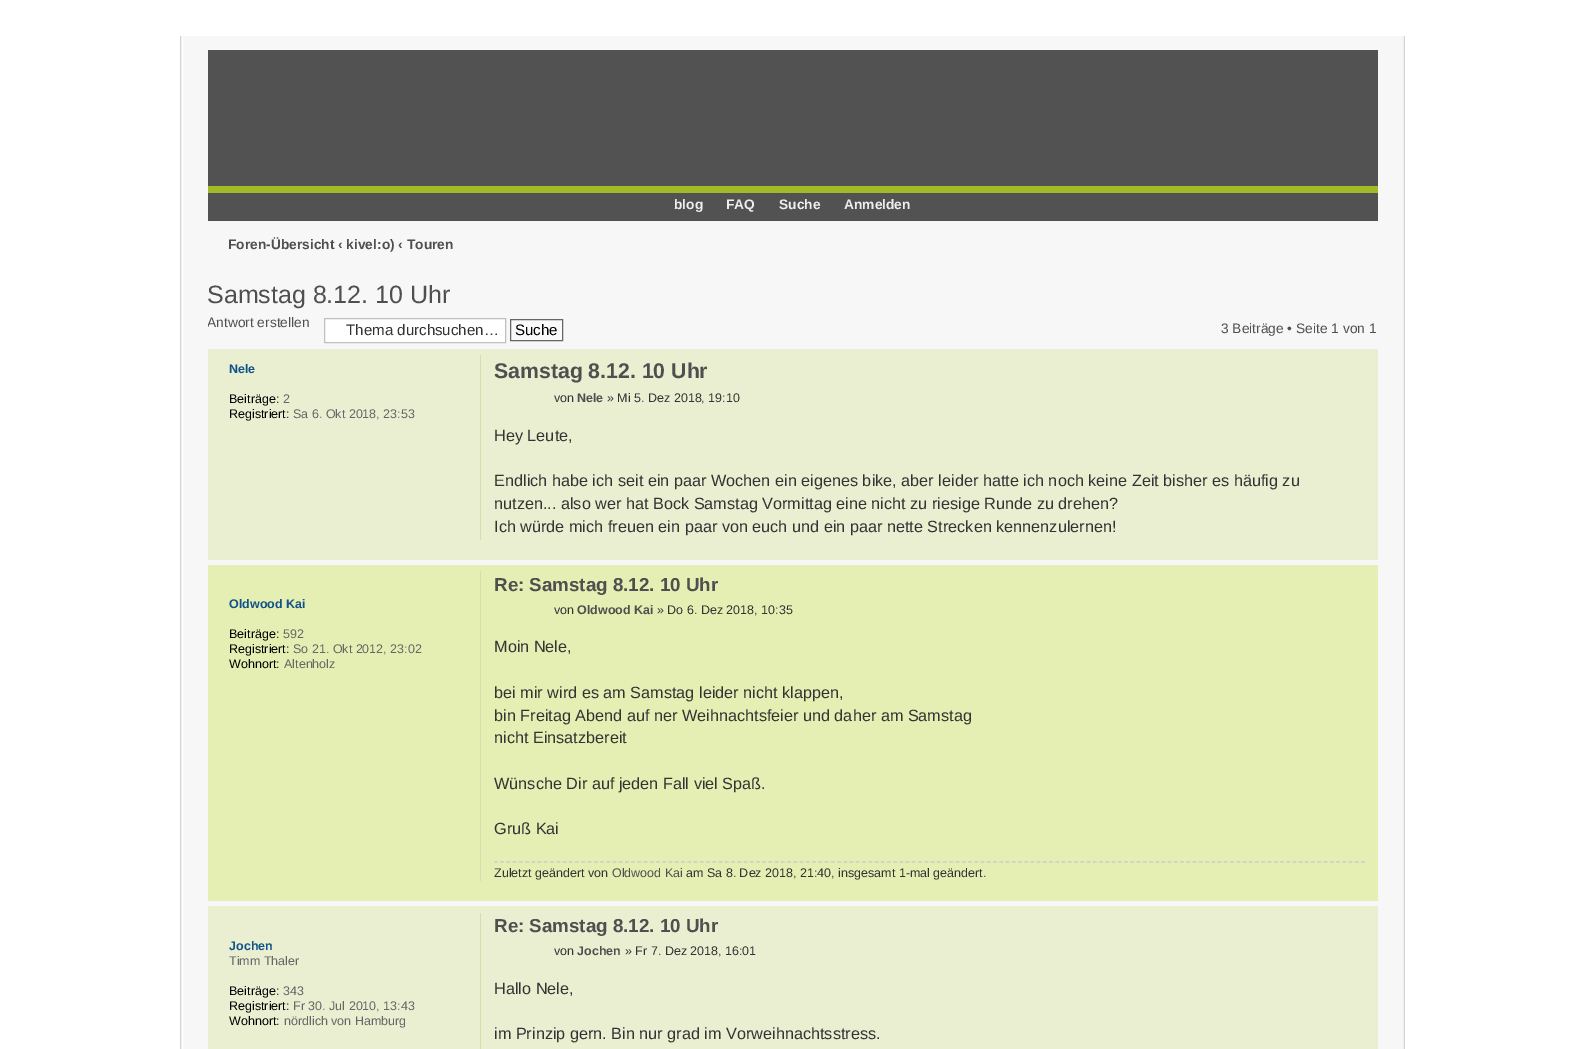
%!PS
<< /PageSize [1583 1049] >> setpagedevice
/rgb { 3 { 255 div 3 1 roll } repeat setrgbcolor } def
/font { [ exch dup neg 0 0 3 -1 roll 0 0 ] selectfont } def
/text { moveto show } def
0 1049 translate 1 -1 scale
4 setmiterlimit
255 255 255 rgb
0 0 1583 1049 rectfill
212 212 212 rgb
1404 36 1 1013 rectfill
180 36 1 1013 rectfill
247 247 247 rgb
183 36 1220 1013 rectfill
239 239 239 rgb
1403 36 1 1013 rectfill
181 36 1 1013 rectfill
82 82 82 rgb
208 50 1170 136 rectfill
162 186 37 rgb
208 186 1170 7 rectfill
82 82 82 rgb
208 193 1170 28 rectfill
255 255 255 rgb
324.5 318.5 moveto 181 0 rlineto 0 24 rlineto -181 0 rlineto closepath gsave fill grestore
191 191 191 rgb
stroke
250 250 250 rgb
510.5 319.5 moveto 52 0 rlineto 0 21 rlineto -52 0 rlineto closepath gsave fill grestore
102 102 102 rgb
stroke
234 239 209 rgb
208 349 1170 211 rectfill
213 223 167 rgb
480 355 1 185 rectfill
229 239 179 rgb
208 565 1170 336 rectfill
213 223 167 rgb
480 571 1 310 rectfill
204 204 204 rgb
1.2 setlinewidth
[3.75 2.49] 0 setdash
494 862 moveto 871 0 rlineto stroke
234 239 209 rgb
208 906 1170 143 rectfill
213 223 167 rgb
480 913 1 136 rectfill
/LiberationSans-Bold 13.75 font
238 238 238 rgb
(blog) 674 209 text
(FAQ) 726 209 text
(Suche) 779 209 text
(Anmelden) 844 209 text
79 79 79 rgb
(Foren-Übersicht ‹ kivel:o\) ‹ Touren) 228 249 text
/LiberationSans-Regular 25 font
(Samstag 8.12. 10 Uhr) 207 303 text
gsave
208 314 103 31 rectclip
/LiberationSans-Regular 13.75 font
(Antwort erstellen) 207 327 text
grestore
/LiberationSans-Regular 15.1 font
51 51 51 rgb
(Thema durchsuchen…) 346 335 text
0 0 0 rgb
(Suche) 515 335 text
/LiberationSans-Regular 13.75 font
79 79 79 rgb
(3 Beiträge • Seite 1 von 1) 1221 333 text
/LiberationSans-Bold 12.5 font
16 82 137 rgb
(Nele) 229 373 text
/LiberationSans-Regular 12.5 font
0 0 0 rgb
(Beiträge:) 229 403 text
102 102 102 rgb
(2) 283 403 text
0 0 0 rgb
(Registriert:) 229 418 text
102 102 102 rgb
(Sa 6. Okt 2018, 23:53) 293 418 text
/LiberationSans-Bold 21.25 font
79 79 79 rgb
(Samstag 8.12. 10 Uhr) 494 378 text
/LiberationSans-Regular 12.5 font
51 51 51 rgb
(von) 554 402 text
/LiberationSans-Bold 12.5 font
79 79 79 rgb
(Nele) 577 402 text
/LiberationSans-Regular 12.5 font
51 51 51 rgb
(» Mi 5. Dez 2018, 19:10) 607 402 text
/LiberationSans-Regular 16.25 font
(Hey Leute,) 494 441 text
(Endlich habe ich seit ein paar Wochen ein eigenes bike, aber leider hatte ich noch keine Zeit bisher es häufig zu) 494 486 text
(nutzen... also wer hat Bock Samstag Vormittag eine nicht zu riesige Runde zu drehen?) 494 509 text
(Ich würde mich freuen ein paar von euch und ein paar nette Strecken kennenzulernen!) 494 532 text
/LiberationSans-Bold 12.5 font
16 82 137 rgb
(Oldwood Kai) 229 608 text
/LiberationSans-Regular 12.5 font
0 0 0 rgb
(Beiträge:) 229 638 text
102 102 102 rgb
(592) 283 638 text
0 0 0 rgb
(Registriert:) 229 653 text
102 102 102 rgb
(So 21. Okt 2012, 23:02) 293 653 text
0 0 0 rgb
(Wohnort:) 229 668 text
102 102 102 rgb
(Altenholz) 284 668 text
/LiberationSans-Bold 18.75 font
79 79 79 rgb
(Re: Samstag 8.12. 10 Uhr) 494 591 text
/LiberationSans-Regular 12.5 font
51 51 51 rgb
(von) 554 614 text
/LiberationSans-Bold 12.5 font
79 79 79 rgb
(Oldwood Kai) 577 614 text
/LiberationSans-Regular 12.5 font
51 51 51 rgb
(» Do 6. Dez 2018, 10:35) 657 614 text
/LiberationSans-Regular 16.25 font
(Moin Nele,) 494 652 text
(bei mir wird es am Samstag leider nicht klappen,) 494 698 text
(bin Freitag Abend auf ner Weihnachtsfeier und daher am Samstag) 494 721 text
(nicht Einsatzbereit) 494 743 text
(Wünsche Dir auf jeden Fall viel Spaß.) 494 789 text
(Gruß Kai) 494 834 text
/LiberationSans-Regular 12.5 font
(Zuletzt geändert von) 494 877 text
79 79 79 rgb
(Oldwood Kai) 612 877 text
51 51 51 rgb
(am Sa 8. Dez 2018, 21:40, insgesamt 1-mal geändert.) 686 877 text
/LiberationSans-Bold 12.5 font
16 82 137 rgb
(Jochen) 229 950 text
/LiberationSans-Regular 12.5 font
102 102 102 rgb
(Timm Thaler) 229 965 text
0 0 0 rgb
(Beiträge:) 229 995 text
102 102 102 rgb
(343) 283 995 text
0 0 0 rgb
(Registriert:) 229 1010 text
102 102 102 rgb
(Fr 30. Jul 2010, 13:43) 293 1010 text
0 0 0 rgb
(Wohnort:) 229 1025 text
102 102 102 rgb
(nördlich von Hamburg) 284 1025 text
/LiberationSans-Bold 18.75 font
79 79 79 rgb
(Re: Samstag 8.12. 10 Uhr) 494 932 text
/LiberationSans-Regular 12.5 font
51 51 51 rgb
(von) 554 955 text
/LiberationSans-Bold 12.5 font
79 79 79 rgb
(Jochen) 577 955 text
/LiberationSans-Regular 12.5 font
51 51 51 rgb
(» Fr 7. Dez 2018, 16:01) 625 955 text
/LiberationSans-Regular 16.25 font
(Hallo Nele,) 494 994 text
(im Prinzip gern. Bin nur grad im Vorweihnachtsstress.) 494 1039 text
showpage
